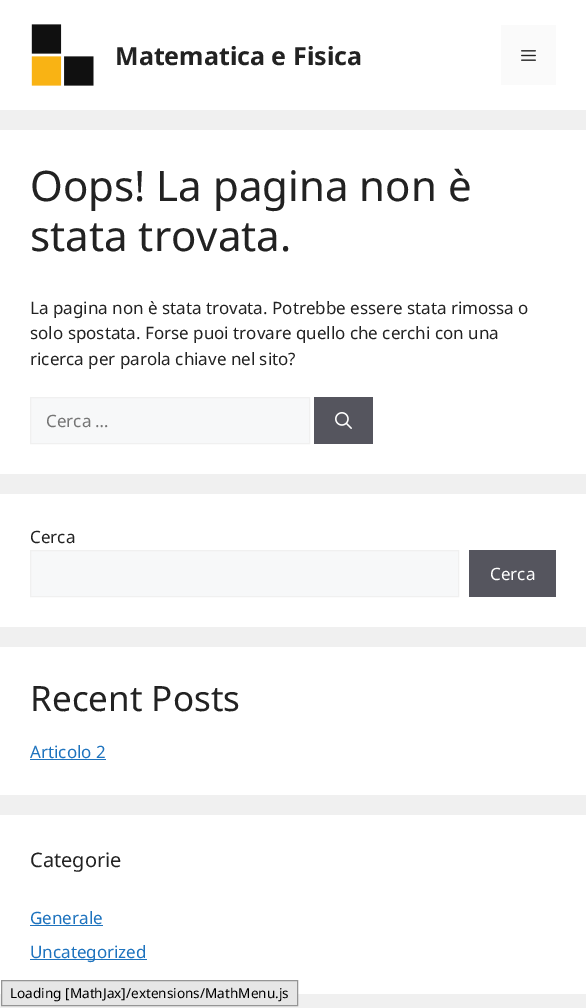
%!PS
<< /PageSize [586 1008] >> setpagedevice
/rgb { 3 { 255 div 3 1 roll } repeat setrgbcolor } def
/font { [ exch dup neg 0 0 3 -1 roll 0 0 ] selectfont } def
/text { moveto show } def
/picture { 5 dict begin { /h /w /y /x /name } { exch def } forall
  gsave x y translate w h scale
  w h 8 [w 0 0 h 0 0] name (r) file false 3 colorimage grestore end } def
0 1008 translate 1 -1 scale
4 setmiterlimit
240 240 240 rgb
0 0 586 1008 rectfill
255 255 255 rgb
0 0 586 110 rectfill
(img_01.rgb) 31 24 63 62 picture
250 250 250 rgb
501 25 55 60 rectfill
(img_02.rgb) 521 50 15 11 picture
255 255 255 rgb
0 130 586 344 rectfill
247 248 249 rgb
30.5 397.5 moveto 279 0 rlineto 0 46 rlineto -279 0 rlineto closepath gsave fill grestore
240 240 240 rgb
stroke
85 85 94 rgb
314 397 59 47 rectfill
(img_03.rgb) 335 412 17 17 picture
255 255 255 rgb
0 494 586 133 rectfill
247 248 249 rgb
30.5 550.5 moveto 428 0 rlineto 0 46 rlineto -428 0 rlineto closepath gsave fill grestore
240 240 240 rgb
stroke
85 85 94 rgb
469 550 87 47 rectfill
255 255 255 rgb
0 647 586 148 rectfill
30 115 190 rgb
30 759 76 1 rectfill
255 255 255 rgb
0 815 586 179 rectfill
30 115 190 rgb
30 925 73 1 rectfill
30 959 117 1 rectfill
230 230 230 rgb
1.5 980.5 moveto 296 0 rlineto 0 25 rlineto -296 0 rlineto closepath gsave fill grestore
149 149 149 rgb
stroke
/NotoSans-Bold 25 font
34 34 34 rgb
(Matematica e Fisica) 115 65 text
/NotoSans-Regular 42 font
(Oops! La pagina non è) 30 201 text
(stata trovata.) 30 251 text
/NotoSans-Regular 17 font
(La pagina non è stata trovata. Potrebbe essere stata rimossa o) 30 314 text
(solo spostata. Forse puoi trovare quello che cerchi con una) 30 339 text
(ricerca per parola chiave nel sito?) 30 365 text
117 117 117 rgb
(Cerca …) 46 427 text
34 34 34 rgb
(Cerca) 30 543 text
255 255 255 rgb
(Cerca) 490 580 text
/NotoSans-Regular 35 font
34 34 34 rgb
(Recent Posts) 30 711 text
/NotoSans-Regular 17 font
30 115 190 rgb
(Articolo 2) 30 758 text
/NotoSans-Regular 20 font
34 34 34 rgb
(Categorie) 30 867 text
/NotoSans-Regular 17 font
30 115 190 rgb
(Generale) 30 924 text
(Uncategorized) 30 958 text
/NotoSans-Regular 13.6 font
0 0 0 rgb
(Loading [MathJax]/extensions/MathMenu.js) 10 998 text
showpage
